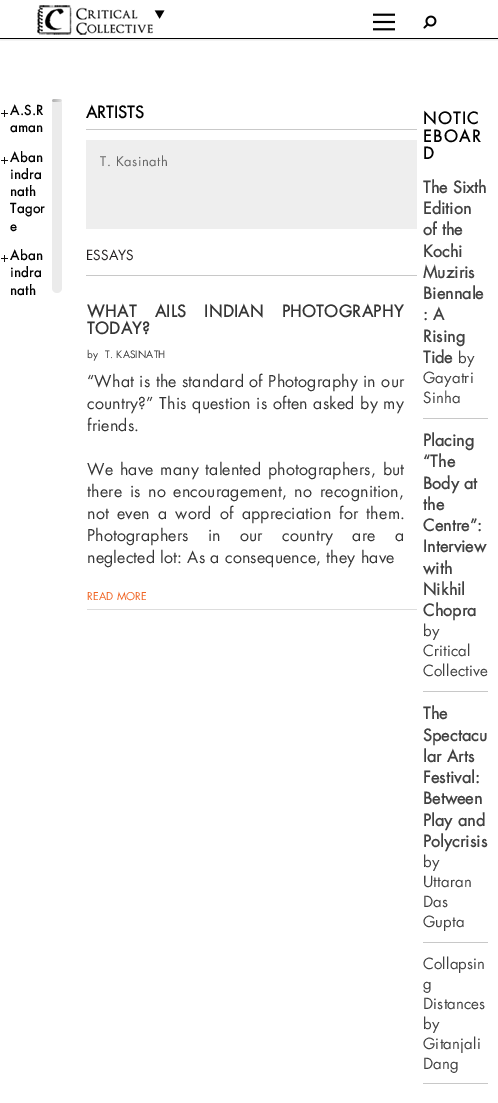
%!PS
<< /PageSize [498 1103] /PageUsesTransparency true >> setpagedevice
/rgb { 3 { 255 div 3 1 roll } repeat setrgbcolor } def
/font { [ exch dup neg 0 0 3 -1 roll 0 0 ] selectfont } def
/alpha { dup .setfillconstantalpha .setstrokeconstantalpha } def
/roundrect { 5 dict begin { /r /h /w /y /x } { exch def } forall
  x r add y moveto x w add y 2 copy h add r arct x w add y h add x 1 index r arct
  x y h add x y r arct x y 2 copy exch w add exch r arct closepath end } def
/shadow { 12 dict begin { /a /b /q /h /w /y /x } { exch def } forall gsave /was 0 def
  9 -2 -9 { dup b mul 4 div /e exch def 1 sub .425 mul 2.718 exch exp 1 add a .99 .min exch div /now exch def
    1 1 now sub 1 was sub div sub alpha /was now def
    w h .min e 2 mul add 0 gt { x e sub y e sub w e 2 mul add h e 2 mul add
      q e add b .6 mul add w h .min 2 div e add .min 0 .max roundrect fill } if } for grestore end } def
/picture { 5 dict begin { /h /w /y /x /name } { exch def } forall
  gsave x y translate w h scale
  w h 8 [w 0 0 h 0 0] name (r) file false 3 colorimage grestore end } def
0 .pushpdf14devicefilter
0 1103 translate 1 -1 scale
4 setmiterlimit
255 255 255 rgb
0 0 498 1103 rectfill
235 235 235 rgb
52 99 10 194 5 roundrect fill
(img_01.rgb) 52 99 10 3 picture
gsave
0 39 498 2 rectclip
0 0 0 rgb
0 1 498 39 0 1.5 0.1 shadow
grestore
0 0 0 rgb
0 38 498 1 rectfill
(img_02.rgb) 37 5 128 30 picture
(img_03.rgb) 373 13 22 18 picture
(img_04.rgb) 423 15 14 14 picture
(img_05.rgb) 1 110 7 7 picture
(img_05.rgb) 1 157 7 7 picture
(img_05.rgb) 1 255 7 7 picture
201 201 201 rgb
86 129 331 1 rectfill
238 238 238 rgb
86 140 331 89 rectfill
200 200 200 rgb
86 275 331 1 rectfill
221 221 221 rgb
86 609 331 1 rectfill
255 255 255 rgb
86 609 1 1 rectfill
200 200 200 rgb
423 418 65 1 rectfill
423 691 65 1 rectfill
423 942 65 1 rectfill
423 1083 65 1 rectfill
/Futura-Bold 13 font
0 0 0 rgb
10 115 moveto 0.5 0 (A.S.R) ashow
10 132 moveto 0.5 0 (aman) ashow
10 162 moveto 0.5 0 (Aban) ashow
10 179 moveto 0.5 0 (indra) ashow
10 196 moveto 0.5 0 (nath) ashow
10 213 moveto 0.5 0 (Tagor) ashow
10 231 moveto 0.5 0 (e) ashow
10 260 moveto 0.5 0 (Aban) ashow
10 277 moveto 0.5 0 (indra) ashow
10 295 moveto 0.5 0 (nath) ashow
/Futura-Bold 16 font
86 118 moveto 0.15 0 (ARTISTS) ashow
/Futura-Regular 13 font
102 102 102 rgb
100 166 moveto 0.5 0 (T. Kasinath) ashow
/Futura-Regular 13.5 font
35 31 32 rgb
86 260 moveto 0.15 0 (ESSAYS) ashow
/Futura-Bold 16 font
53 53 53 rgb
87 317 moveto 12.5 0 32 0.5 0 (WHAT AILS INDIAN PHOTOGRAPHY) awidthshow
87 334 moveto 0.5 0 (TODAY?) ashow
/Futura-Regular 10 font
87 358 moveto 0.15 0 (by) ashow
105 358 moveto 0.15 0 (T. KASINATH) ashow
/Futura-Regular 16 font
87 387 moveto 0.25 0 32 0.15 0 (“What is the standard of Photography in our) awidthshow
87 409 moveto 0.5 0 32 0.15 0 (country?” This question is often asked by my) awidthshow
87 431 moveto 0.15 0 (friends.) ashow
87 475 moveto 1.5 0 32 0.15 0 (We have many talented photographers, but) awidthshow
87 497 moveto 2.5 0 32 0.15 0 (there is no encouragement, no recognition,) awidthshow
87 519 moveto 3 0 32 0.15 0 (not even a word of appreciation for them.) awidthshow
87 541 moveto 14 0 32 0.15 0 (Photographers in our country are a) awidthshow
87 563 moveto 0.15 0 (neglected lot: As a consequence, they have) ashow
/Futura-Regular 10.5 font
240 100 35 rgb
87 600 moveto 0.15 0 (READ MORE) ashow
/Futura-Bold 16 font
0 0 0 rgb
423 124 moveto 1.5 0 (NOTIC) ashow
423 142 moveto 1.5 0 (EBOAR) ashow
423 159 moveto 1.5 0 (D) ashow
65 65 65 rgb
423 193 moveto 0.15 0 (The Sixth) ashow
423 214 moveto 0.15 0 (Edition) ashow
423 235 moveto 0.15 0 (of the) ashow
423 257 moveto 0.15 0 (Kochi) ashow
423 278 moveto 0.15 0 (Muziris) ashow
423 299 moveto 0.15 0 (Biennale) ashow
423 320 moveto 0.15 0 (: A) ashow
423 342 moveto 0.15 0 (Rising) ashow
423 363 moveto 0.15 0 (Tide) ashow
/Futura-Regular 15 font
458 363 moveto 0.15 0 (by) ashow
423 383 moveto 0.15 0 (Gayatri) ashow
423 403 moveto 0.15 0 (Sinha) ashow
/Futura-Bold 16 font
423 446 moveto 0.15 0 (Placing) ashow
423 467 moveto 0.15 0 (“The) ashow
423 489 moveto 0.15 0 (Body at) ashow
423 510 moveto 0.15 0 (the) ashow
423 531 moveto 0.15 0 (Centre”:) ashow
423 552 moveto 0.15 0 (Interview) ashow
423 574 moveto 0.15 0 (with) ashow
423 595 moveto 0.15 0 (Nikhil) ashow
423 616 moveto 0.15 0 (Chopra) ashow
/Futura-Regular 15 font
423 636 moveto 0.15 0 (by) ashow
423 656 moveto 0.15 0 (Critical) ashow
423 676 moveto 0.15 0 (Collective) ashow
/Futura-Bold 16 font
423 719 moveto 0.15 0 (The) ashow
423 741 moveto 0.15 0 (Spectacu) ashow
423 762 moveto 0.15 0 (lar Arts) ashow
423 783 moveto 0.15 0 (Festival:) ashow
423 804 moveto 0.15 0 (Between) ashow
423 826 moveto 0.15 0 (Play and) ashow
423 847 moveto 0.15 0 (Polycrisis) ashow
/Futura-Regular 15 font
423 867 moveto 0.15 0 (by) ashow
423 887 moveto 0.15 0 (Uttaran) ashow
423 907 moveto 0.15 0 (Das) ashow
423 927 moveto 0.15 0 (Gupta) ashow
423 969 moveto 0.15 0 (Collapsin) ashow
423 989 moveto 0.15 0 (g) ashow
423 1009 moveto 0.15 0 (Distances) ashow
423 1029 moveto 0.15 0 (by) ashow
423 1049 moveto 0.15 0 (Gitanjali) ashow
423 1069 moveto 0.15 0 (Dang) ashow
.poppdf14devicefilter showpage
